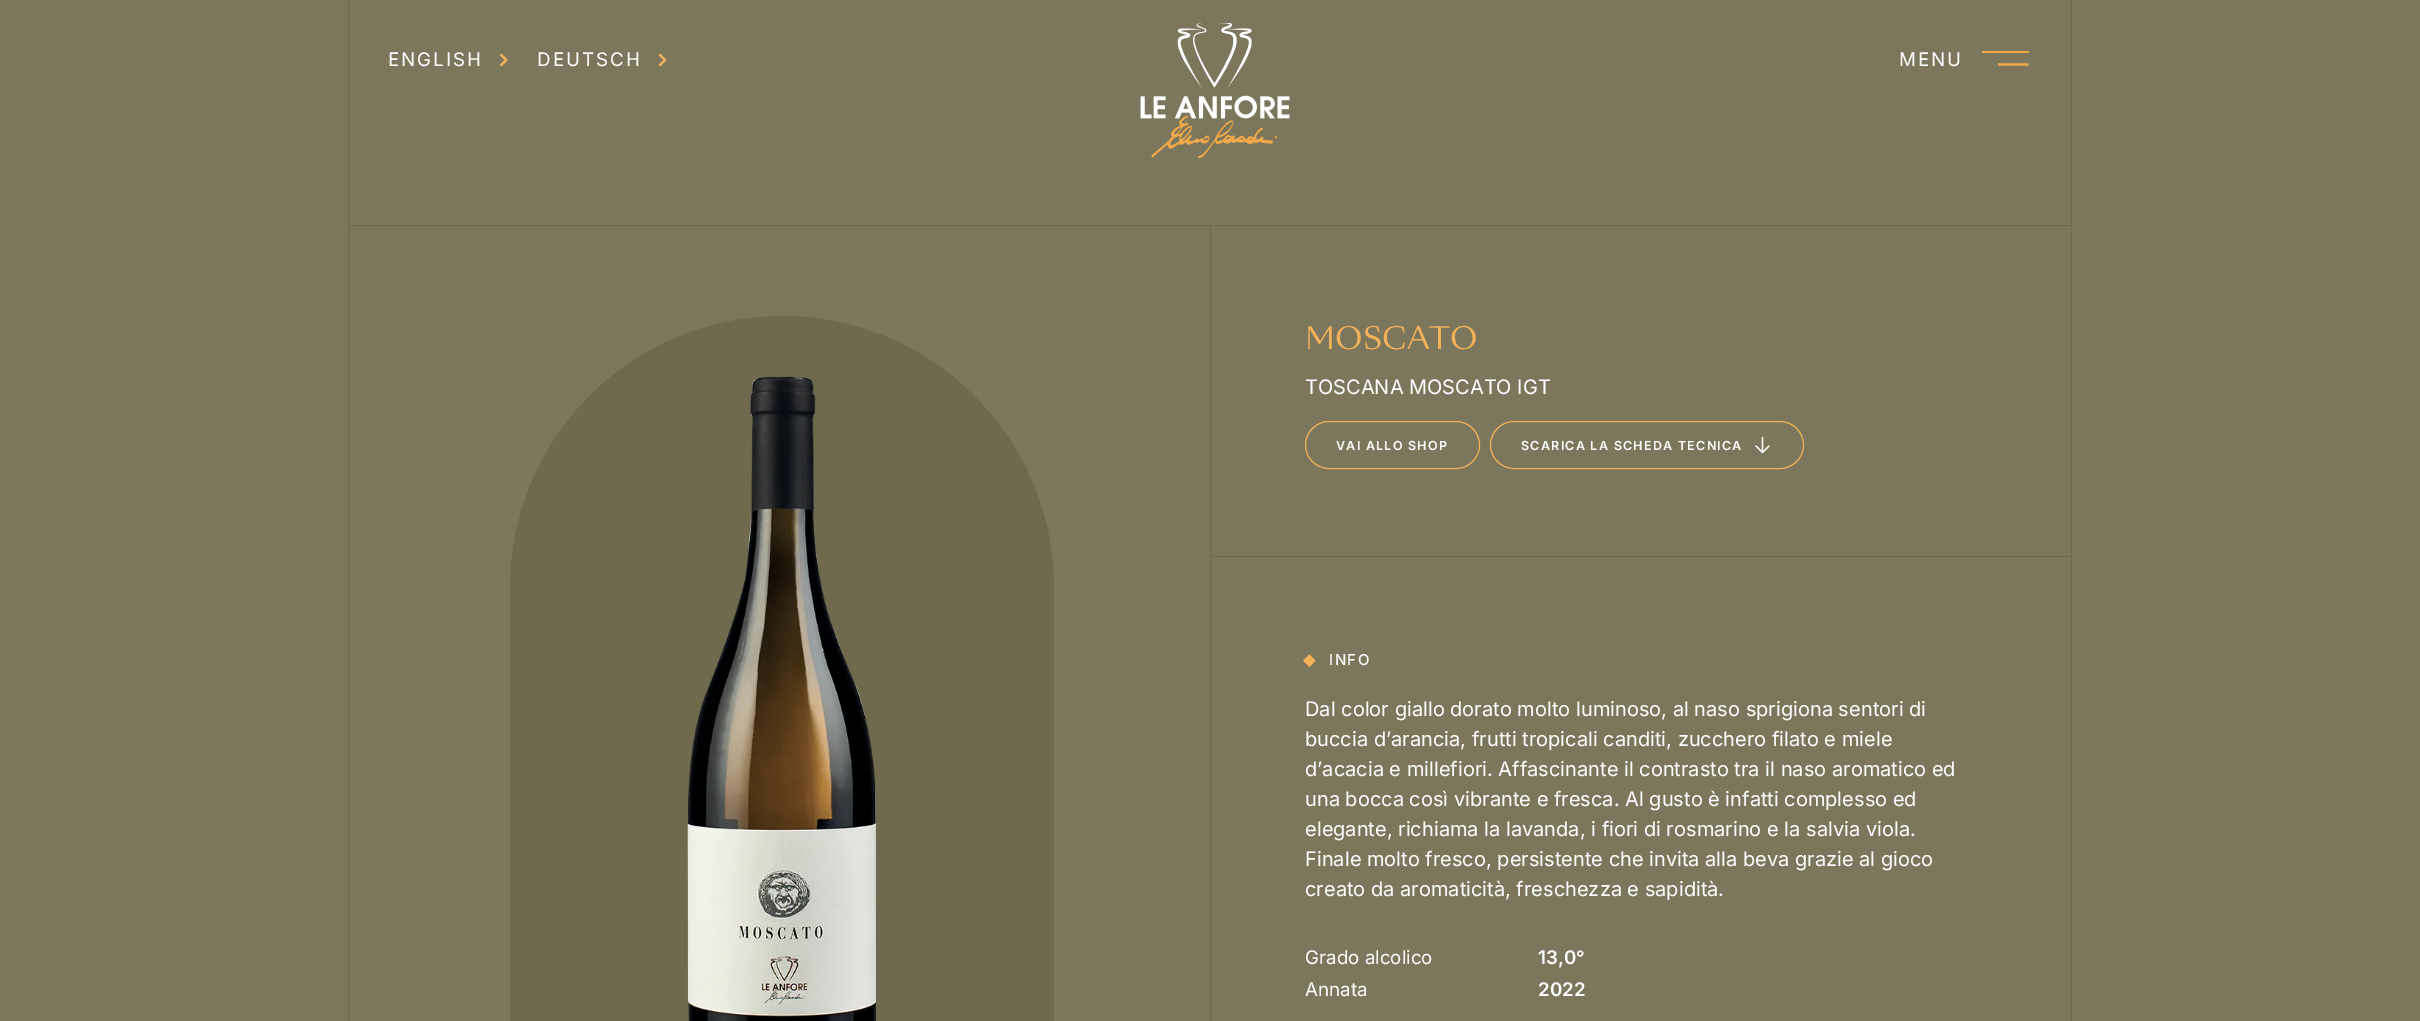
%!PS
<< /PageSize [2420 1021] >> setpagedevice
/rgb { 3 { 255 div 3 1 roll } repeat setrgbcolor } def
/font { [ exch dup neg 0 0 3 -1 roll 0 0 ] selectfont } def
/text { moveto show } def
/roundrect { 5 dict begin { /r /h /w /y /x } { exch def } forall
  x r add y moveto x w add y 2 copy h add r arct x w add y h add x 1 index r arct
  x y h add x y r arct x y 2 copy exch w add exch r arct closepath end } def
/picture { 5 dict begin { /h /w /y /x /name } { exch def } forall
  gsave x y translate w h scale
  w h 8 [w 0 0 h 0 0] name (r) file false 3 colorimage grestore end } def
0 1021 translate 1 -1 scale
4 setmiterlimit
124 119 92 rgb
0 0 2420 1021 rectfill
(img_01.rgb) 500 53 8 14 picture
(img_02.rgb) 658 53 9 14 picture
(img_03.rgb) 1140 23 150 135 picture
242 170 73 rgb
1982 51 47 2 rectfill
2.3 setlinewidth
1998 64.5 moveto 30.5 0 rlineto stroke
111 105 78 rgb
2071 0 1 1021 rectfill
348 0 1 1021 rectfill
349 225 1722 1 rectfill
782 316 moveto 150 0 272 122 272 272 rcurveto 0 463 rlineto -544 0 rlineto 0 -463 rlineto 0 -150 122 -272 272 -272 rcurveto closepath fill
(img_04.rgb) 687 376 189 645 picture
1210 226 1 795 rectfill
243 178 90 rgb
1 setlinewidth
1305.5 421.5 174 47 23.5 roundrect stroke
1490.5 421.5 313 47 23.5 roundrect stroke
255 255 255 rgb
1.2 setlinewidth
1 setlinecap
1 setlinejoin
1769 446 moveto -6.5 6.5 rlineto 1762.5 452.5 moveto -6.5 -6.5 rlineto 1762.5 452.5 moveto 0 -15 rlineto stroke
111 105 78 rgb
1210 556 861 1 rectfill
243 178 90 rgb
1309.5 654.5 moveto 6 6 rlineto -6 6.5 rlineto -6.5 -6.5 rlineto closepath fill
/Inter-Regular 18.75 font
255 255 255 rgb
388 66 moveto 2 0 (ENGLISH) ashow
537 66 moveto 2 0 (DEUTSCH) ashow
1899 66 moveto 2 0 (MENU) ashow
/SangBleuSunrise-Regular 30 font
243 178 90 rgb
(MOSCATO) 1305 349 text
/Inter-Regular 20 font
255 255 255 rgb
(TOSCANA MOSCATO IGT) 1305 394 text
/Inter-SemiBold 12.5 font
1336 450 moveto 1.25 0 (VAI ALLO SHOP) ashow
1521 450 moveto 1.25 0 (SCARICA LA SCHEDA TECNICA) ashow
/Inter-Medium 15 font
1329 665 moveto 1.5 0 (INFO) ashow
/Inter-Regular 20 font
(Dal color giallo dorato molto luminoso, al naso sprigiona sentori di) 1305 716 text
(buccia d’arancia, frutti tropicali canditi, zucchero filato e miele) 1305 746 text
(d’acacia e millefiori. Affascinante il contrasto tra il naso aromatico ed) 1305 776 text
(una bocca così vibrante e fresca. Al gusto è infatti complesso ed) 1305 806 text
(elegante, richiama la lavanda, i fiori di rosmarino e la salvia viola.) 1305 836 text
(Finale molto fresco, persistente che invita alla beva grazie al gioco) 1305 866 text
(creato da aromaticità, freschezza e sapidità.) 1305 896 text
/Inter-Regular 18.75 font
(Grado alcolico) 1305 964 text
/Inter-SemiBold 18.75 font
(13,0°) 1538 964 text
/Inter-Regular 18.75 font
(Annata) 1305 996 text
/Inter-SemiBold 18.75 font
(2022) 1538 996 text
showpage
